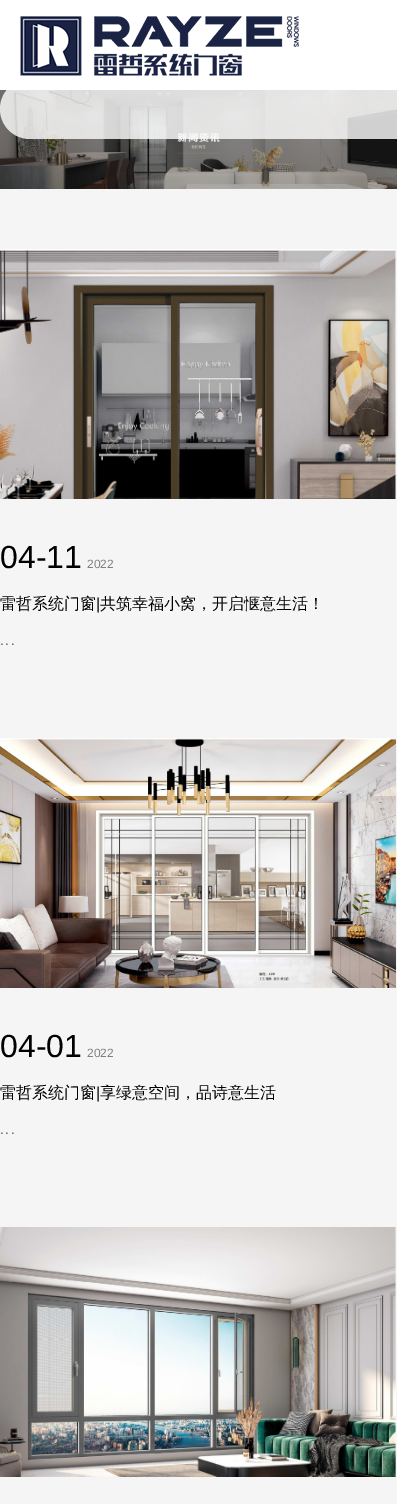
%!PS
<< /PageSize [397 1504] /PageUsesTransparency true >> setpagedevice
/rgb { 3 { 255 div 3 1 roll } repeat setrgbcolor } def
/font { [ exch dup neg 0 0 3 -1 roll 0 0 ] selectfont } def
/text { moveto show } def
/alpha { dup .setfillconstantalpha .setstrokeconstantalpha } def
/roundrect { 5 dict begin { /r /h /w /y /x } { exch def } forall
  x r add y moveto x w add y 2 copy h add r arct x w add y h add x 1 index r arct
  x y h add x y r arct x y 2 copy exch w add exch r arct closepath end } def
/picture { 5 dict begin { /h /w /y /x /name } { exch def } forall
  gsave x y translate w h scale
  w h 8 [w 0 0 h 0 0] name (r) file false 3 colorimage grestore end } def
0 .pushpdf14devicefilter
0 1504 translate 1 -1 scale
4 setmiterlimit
255 255 255 rgb
0 0 397 1504 rectfill
(img_01.rgb) 20 16 279 60 picture
245 245 245 rgb
0 189 397 1315 rectfill
(img_02.rgb) 0 90 397 99 picture
0.8 alpha
255 255 255 rgb
0 79 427 60 30 roundrect fill
1 alpha
(img_03.rgb) 0 249 396 250 picture
(img_04.rgb) 0 738 396 250 picture
(img_05.rgb) 0 1227 396 250 picture
/LiberationSans-Regular 32 font
0 0 0 rgb
(04-11) 0 568 text
/LiberationSans-Regular 12 font
128 128 128 rgb
(2022) 87 568 text
/WenQuanYiZenHei-Medium 16 font
0 0 0 rgb
(雷哲系统门窗) 0 609 text
/LiberationSans-Regular 16 font
(|) 96 609 text
/WenQuanYiZenHei-Medium 16 font
(共筑幸福小窝，开启惬意生活！) 100 609 text
/LiberationSans-Regular 14 font
76 76 76 rgb
0 645 moveto 1.5 0 (...) ashow
/LiberationSans-Regular 32 font
0 0 0 rgb
(04-01) 0 1057 text
/LiberationSans-Regular 12 font
128 128 128 rgb
(2022) 87 1057 text
/WenQuanYiZenHei-Medium 16 font
0 0 0 rgb
(雷哲系统门窗) 0 1098 text
/LiberationSans-Regular 16 font
(|) 96 1098 text
/WenQuanYiZenHei-Medium 16 font
(享绿意空间，品诗意生活) 100 1098 text
/LiberationSans-Regular 14 font
76 76 76 rgb
0 1134 moveto 1.5 0 (...) ashow
.poppdf14devicefilter showpage
